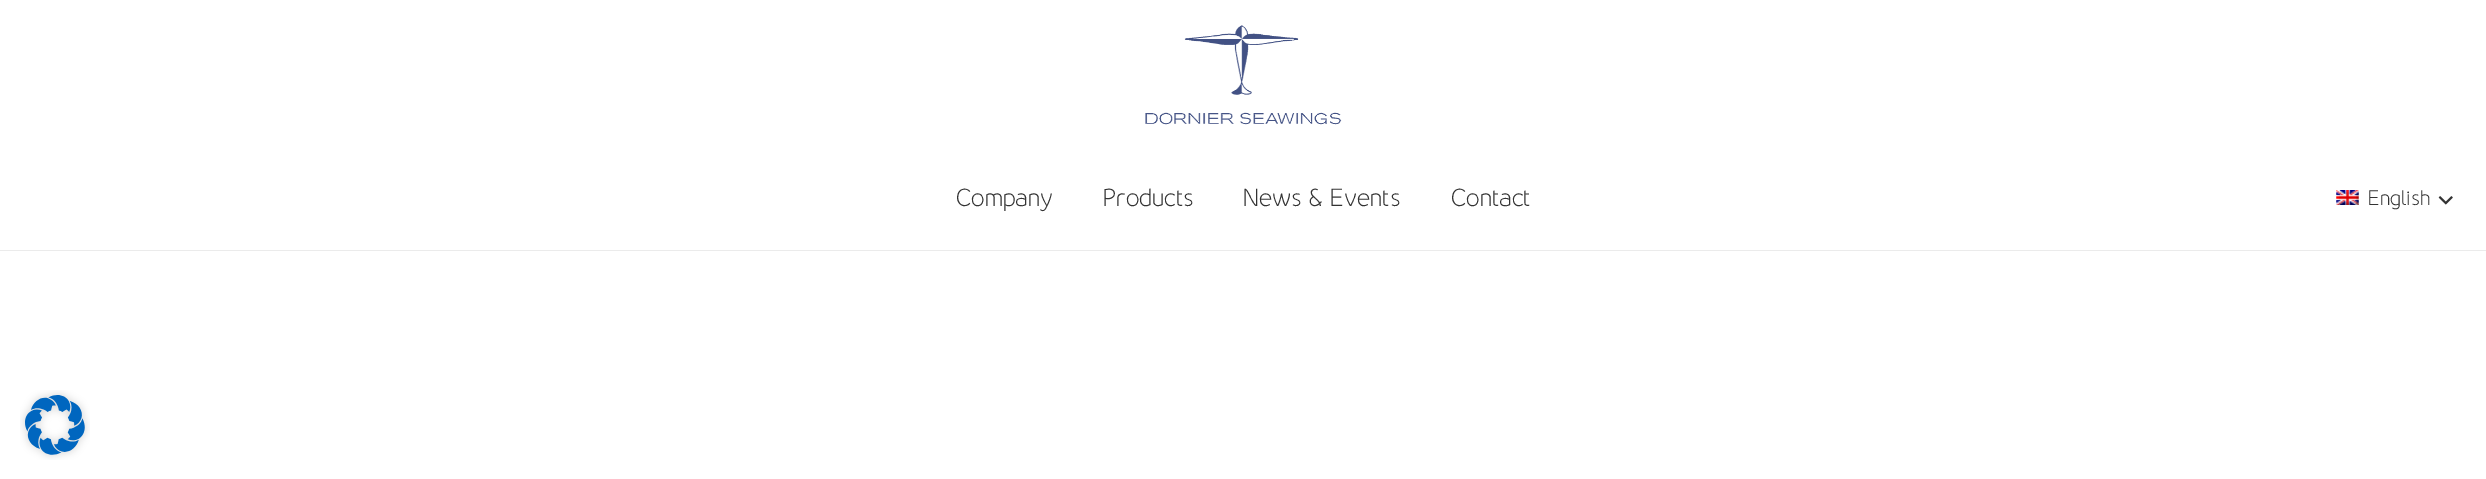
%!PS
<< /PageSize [2486 479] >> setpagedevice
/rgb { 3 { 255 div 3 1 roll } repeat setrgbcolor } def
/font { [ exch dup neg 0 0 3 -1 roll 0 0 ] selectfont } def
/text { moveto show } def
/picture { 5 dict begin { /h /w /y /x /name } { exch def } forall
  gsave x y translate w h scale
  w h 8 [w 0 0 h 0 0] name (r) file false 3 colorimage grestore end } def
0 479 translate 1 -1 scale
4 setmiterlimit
255 255 255 rgb
0 0 2486 479 rectfill
(img_01.rgb) 1145 25 197 100 picture
235 235 235 rgb
0 250 2486 1 rectfill
(img_02.rgb) 2336 190 23 15 picture
(img_03.rgb) 2438 196 15 9 picture
(img_04.rgb) 20 390 70 70 picture
/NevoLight-Regular 22.5 font
51 51 51 rgb
(Company) 956 206 text
(Products) 1103 206 text
(News & Events) 1243 206 text
(Contact) 1451 206 text
/NevoLight-Regular 19 font
(English) 2368 205 text
showpage
